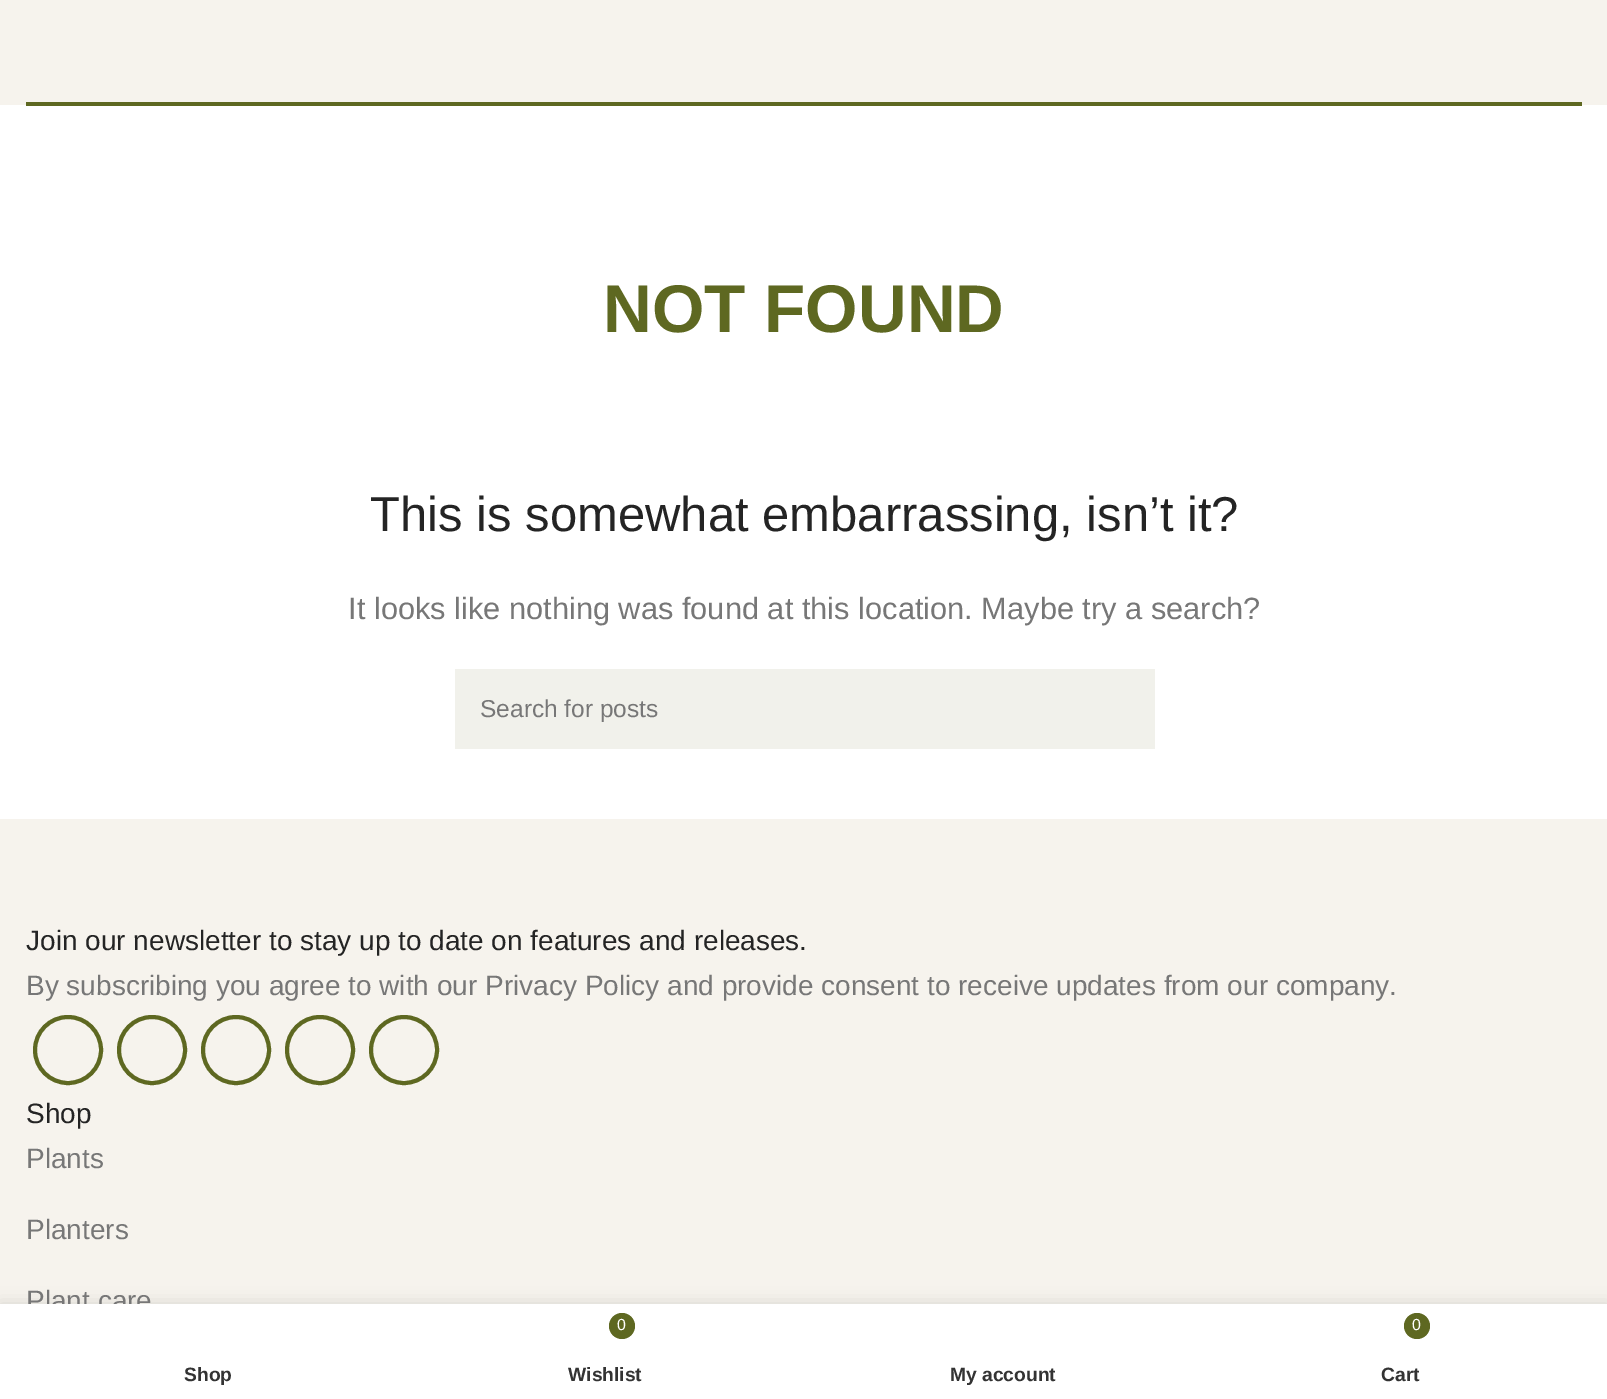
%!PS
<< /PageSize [1607 1399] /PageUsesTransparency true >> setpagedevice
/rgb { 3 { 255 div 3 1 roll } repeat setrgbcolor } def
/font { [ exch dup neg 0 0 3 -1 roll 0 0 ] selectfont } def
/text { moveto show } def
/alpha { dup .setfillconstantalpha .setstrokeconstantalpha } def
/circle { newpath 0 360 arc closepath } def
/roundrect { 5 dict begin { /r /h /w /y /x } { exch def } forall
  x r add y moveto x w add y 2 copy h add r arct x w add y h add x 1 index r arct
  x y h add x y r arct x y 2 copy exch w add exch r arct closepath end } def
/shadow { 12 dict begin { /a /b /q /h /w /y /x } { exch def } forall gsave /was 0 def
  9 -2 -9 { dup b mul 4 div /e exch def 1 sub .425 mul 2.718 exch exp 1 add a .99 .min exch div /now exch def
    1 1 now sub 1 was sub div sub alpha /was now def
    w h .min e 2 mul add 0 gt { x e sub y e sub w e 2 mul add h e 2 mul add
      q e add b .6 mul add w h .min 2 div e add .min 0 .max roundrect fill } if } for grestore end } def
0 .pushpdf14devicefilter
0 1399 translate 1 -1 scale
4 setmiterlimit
255 255 255 rgb
0 0 1607 1399 rectfill
246 243 237 rgb
0 0 1607 105 rectfill
94 104 33 rgb
26 102 1556 4 rectfill
241 241 235 rgb
455 669 700 80 rectfill
246 243 237 rgb
0 819 1607 485 rectfill
94 104 33 rgb
4 setlinewidth
68 1050 33 circle stroke
152 1050 33 circle stroke
236 1050 33 circle stroke
320 1050 33 circle stroke
404 1050 33 circle stroke
0 0 0 rgb
0 1304 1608 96 0 8 0.12 shadow
/LiberationSans-Bold 67.5 font
94 104 33 rgb
(NOT FOUND) 603 332 text
/LiberationSans-Regular 49 font
36 36 36 rgb
(This is somewhat embarrassing, isn’t it?) 370 531 text
/LiberationSans-Regular 30.8 font
119 119 119 rgb
(It looks like nothing was found at this location. Maybe try a search?) 348 619 text
/LiberationSans-Regular 24.5 font
(Search for posts) 480 717 text
/LiberationSans-Regular 28 font
36 36 36 rgb
(Join our newsletter to stay up to date on features and releases.) 26 950 text
119 119 119 rgb
(By subscribing you agree to with our Privacy Policy and provide consent to receive updates from our company.) 26 995 text
36 36 36 rgb
(Shop) 26 1123 text
119 119 119 rgb
(Plants) 26 1168 text
(Planters) 26 1239 text
(Plant care) 26 1310 text
255 255 255 rgb
0 1304 1607 95 rectfill
/LiberationSans-Bold 19.25 font
51 51 51 rgb
(Shop) 184 1381 text
94 104 33 rgb
622 1326 13 circle fill
/LiberationSans-Regular 16 font
255 255 255 rgb
(0) 617 1330 text
/LiberationSans-Bold 19.25 font
51 51 51 rgb
(Wishlist) 568 1381 text
(My account) 950 1381 text
94 104 33 rgb
1417 1326 13 circle fill
/LiberationSans-Regular 16 font
255 255 255 rgb
(0) 1412 1330 text
/LiberationSans-Bold 19.25 font
51 51 51 rgb
(Cart) 1381 1381 text
.poppdf14devicefilter showpage
